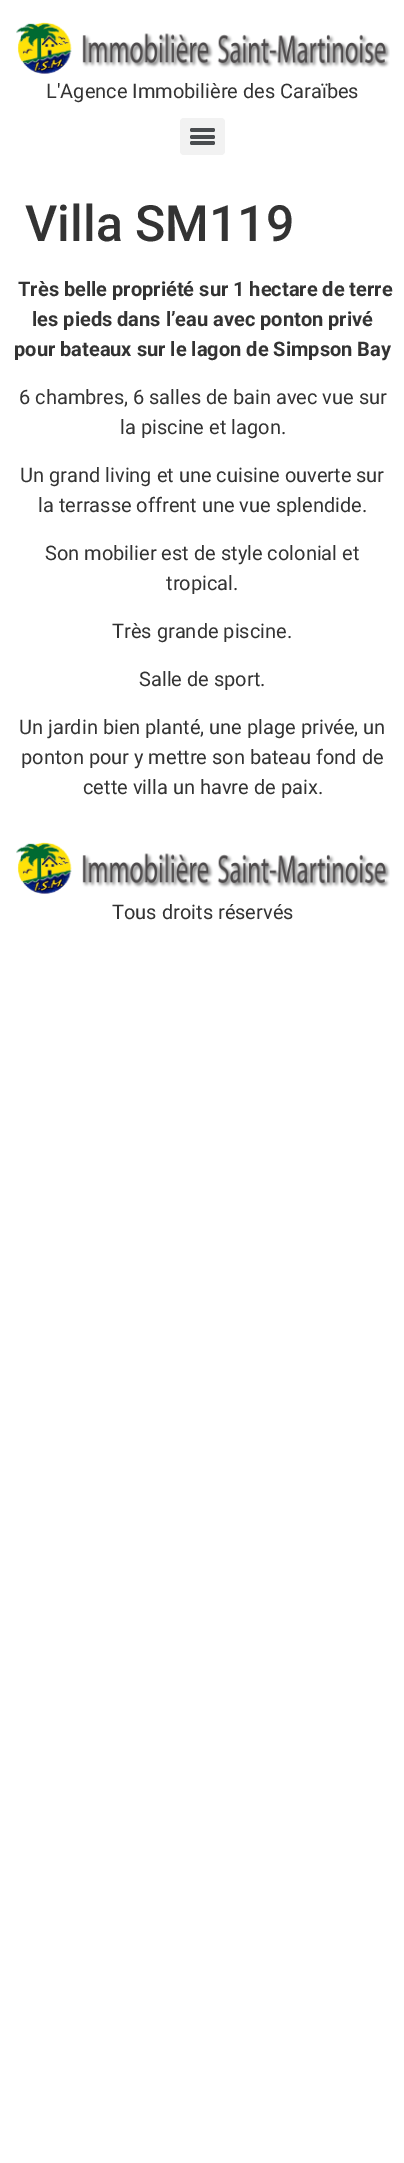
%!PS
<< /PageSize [404 2163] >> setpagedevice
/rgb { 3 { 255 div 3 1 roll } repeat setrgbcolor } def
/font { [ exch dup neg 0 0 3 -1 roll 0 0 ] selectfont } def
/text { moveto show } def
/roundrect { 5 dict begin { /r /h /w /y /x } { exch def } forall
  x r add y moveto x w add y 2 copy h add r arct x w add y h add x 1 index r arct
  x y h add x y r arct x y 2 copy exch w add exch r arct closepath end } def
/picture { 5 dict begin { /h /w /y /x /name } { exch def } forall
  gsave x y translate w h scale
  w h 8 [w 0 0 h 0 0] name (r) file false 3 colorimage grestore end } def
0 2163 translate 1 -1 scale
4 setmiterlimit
255 255 255 rgb
0 0 404 2163 rectfill
(img_01.rgb) 16 22 374 52 picture
242 242 242 rgb
180 118 45 37 4 roundrect fill
73 76 79 rgb
190 135 25 4 2 roundrect fill
190 128 25 4 2 roundrect fill
190 141 25 4 2 roundrect fill
(img_01.rgb) 16 842 374 52 picture
/Roboto-Regular 20 font
51 51 51 rgb
(L'Agence Immobilière des Caraïbes) 46 98 text
/Roboto-Medium 50 font
(Villa SM119) 25 241 text
/Roboto-Bold 20 font
(Très belle propriété sur 1 hectare de terre) 18 296 text
(les pieds dans l’eau avec ponton privé) 32 326 text
(pour bateaux sur le lagon de Simpson Bay) 14 356 text
/Roboto-Regular 20 font
(6 chambres, 6 salles de bain avec vue sur) 19 404 text
(la piscine et lagon.) 120 434 text
(Un grand living et une cuisine ouverte sur) 20 482 text
(la terrasse offrent une vue splendide.) 38 512 text
(Son mobilier est de style colonial et) 45 560 text
(tropical.) 166 590 text
(Très grande piscine.) 112 638 text
(Salle de sport.) 139 686 text
(Un jardin bien planté, une plage privée, un) 19 734 text
(ponton pour y mettre son bateau fond de) 21 764 text
(cette villa un havre de paix.) 83 794 text
(Tous droits réservés) 112 919 text
showpage
